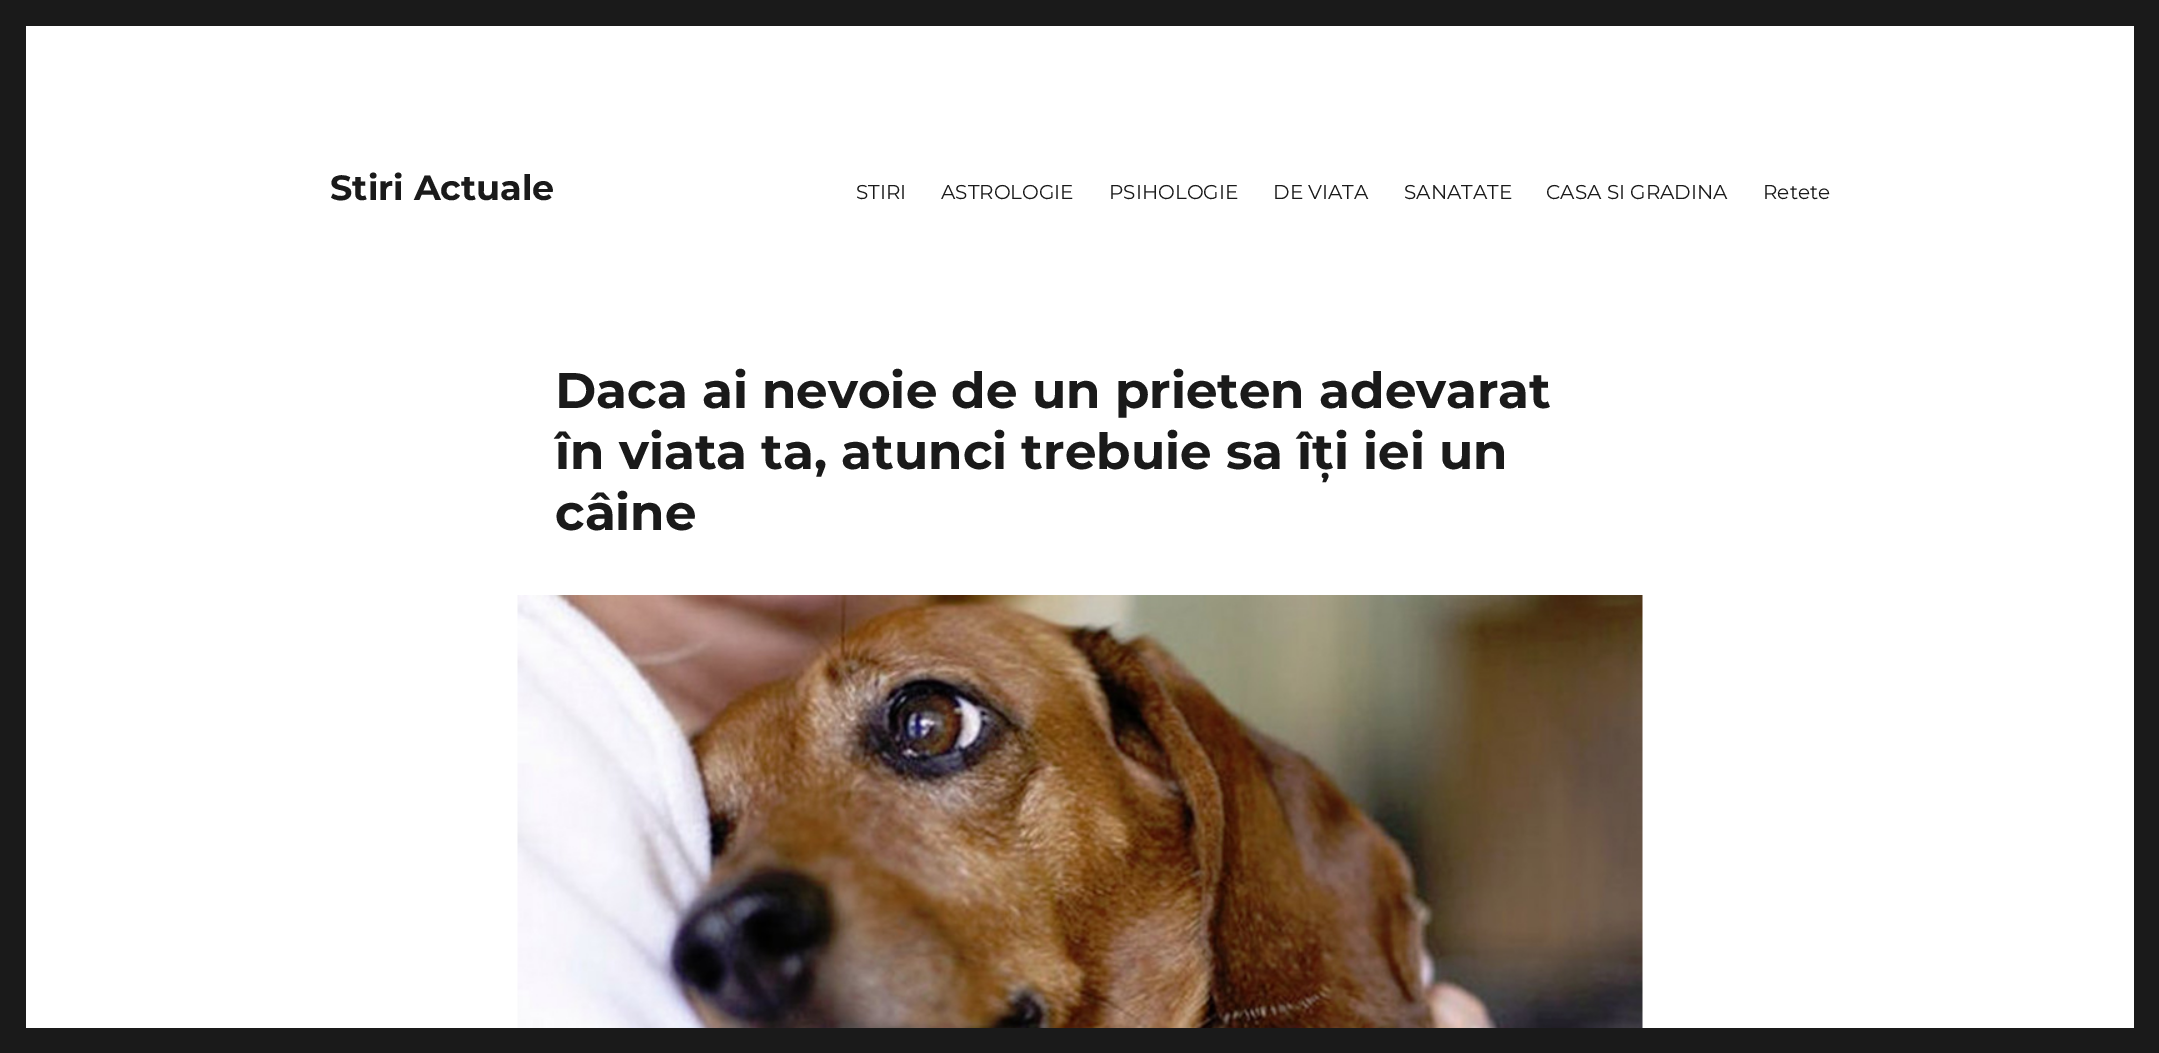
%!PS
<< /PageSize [2159 1053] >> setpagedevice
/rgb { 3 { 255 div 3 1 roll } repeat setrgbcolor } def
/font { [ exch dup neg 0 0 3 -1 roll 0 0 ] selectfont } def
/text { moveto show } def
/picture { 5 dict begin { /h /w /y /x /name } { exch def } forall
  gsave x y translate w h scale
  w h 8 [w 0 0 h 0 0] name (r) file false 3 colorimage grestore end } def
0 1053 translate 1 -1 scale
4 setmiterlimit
26 26 26 rgb
0 0 2159 1053 rectfill
255 255 255 rgb
26 26 2108 1002 rectfill
(img_01.rgb) 517 595 1126 433 picture
/Montserrat-Thin 35 font
26 26 26 rgb
(Stiri Actuale) 330 200 text
/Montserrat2-Thin 20 font
(STIRI) 856 199 text
(ASTROLOGIE) 941 199 text
(PSIHOLOGIE) 1109 199 text
(DE VIATA) 1273 199 text
(SANATATE) 1404 199 text
(CASA SI GRADINA) 1546 199 text
(Retete) 1763 199 text
/Montserrat-Thin 50 font
(Daca ai nevoie de un prieten adevarat) 555 408 text
(în viata ta, atunci trebuie sa îți iei un) 555 469 text
(câine) 555 530 text
showpage
